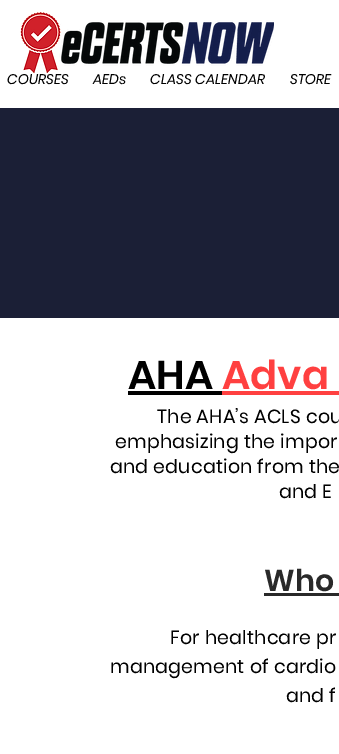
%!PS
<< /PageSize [339 754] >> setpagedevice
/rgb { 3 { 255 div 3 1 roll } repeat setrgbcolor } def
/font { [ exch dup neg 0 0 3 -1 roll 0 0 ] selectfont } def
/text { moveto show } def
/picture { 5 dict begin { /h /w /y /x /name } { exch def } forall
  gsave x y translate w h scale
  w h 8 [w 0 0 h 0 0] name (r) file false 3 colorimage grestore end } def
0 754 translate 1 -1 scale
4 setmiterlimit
255 255 255 rgb
0 0 339 754 rectfill
(img_01.rgb) 20 12 254 62 picture
27 31 54 rgb
0 108 339 210 rectfill
0 0 0 rgb
128 391 94 4 rectfill
255 64 64 rgb
222 391 117 4 rectfill
41 41 41 rgb
264 593 75 3 rectfill
/Poppins-Italic 14 font
0 0 0 rgb
(COURSES) 7 84 text
(AEDs) 93 84 text
(CLASS CALENDAR) 150 84 text
(STORE) 290 84 text
/Poppins-SemiBold 40 font
(AHA) 128 389 text
255 64 64 rgb
(Adva) 222 389 text
/Poppins-Regular 19 font
0 0 0 rgb
157 423 moveto 0.2 0 (The AHA’s ACLS cou) ashow
115 448 moveto 0.2 0 (emphasizing the impor) ashow
110 473 moveto 0.2 0 (and education from the) ashow
279 498 moveto 0.2 0 (and E) ashow
/Poppins-SemiBold 30 font
41 41 41 rgb
(Who) 264 591 text
/Poppins-Regular 19 font
0 0 0 rgb
170 644 moveto 0.2 0 (For healthcare pr) ashow
110 673 moveto 0.2 0 (management of cardio) ashow
286 702 moveto 0.2 0 (and f) ashow
showpage
